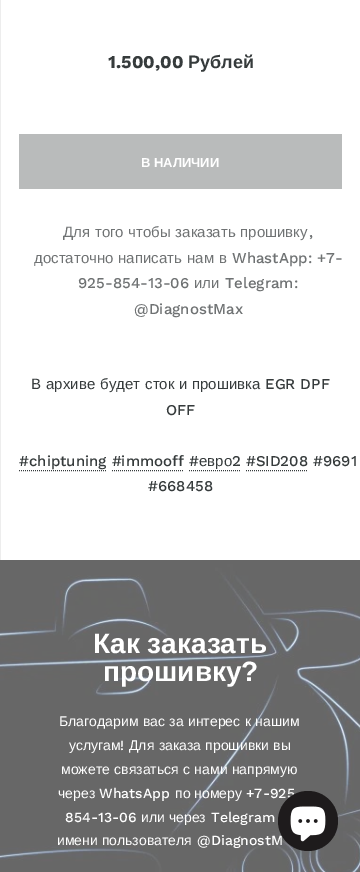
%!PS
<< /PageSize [360 872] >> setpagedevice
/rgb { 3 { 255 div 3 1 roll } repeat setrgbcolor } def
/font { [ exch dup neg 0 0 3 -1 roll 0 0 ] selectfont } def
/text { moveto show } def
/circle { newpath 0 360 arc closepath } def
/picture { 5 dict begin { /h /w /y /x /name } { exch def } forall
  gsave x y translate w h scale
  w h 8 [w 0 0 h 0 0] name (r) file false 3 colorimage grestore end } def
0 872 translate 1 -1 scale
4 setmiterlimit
255 255 255 rgb
0 0 360 872 rectfill
237 237 237 rgb
0 0 1 561 rectfill
185 187 187 rgb
19 134 323 55 rectfill
54 59 60 rgb
[1 1] 0 setdash
19 470.5 moveto 88 0 rlineto stroke
189 470.5 moveto 52 0 rlineto stroke
112 470.5 moveto 72 0 rlineto stroke
246 470.5 moveto 62 0 rlineto stroke
(img_01.rgb) 0 560 360 312 picture
/WorkSans-Bold 18 font
(1.500,00) 108 68 text
/LiberationSans-Bold 18 font
(Рублей) 188 68 text
/LiberationSans-Bold 13 font
255 255 255 rgb
(В НАЛИЧИИ) 141 167 text
/LiberationSans-Regular 15 font
111 114 115 rgb
63 237 moveto 0.5 0 32 (Для того чтобы заказать прошивку) widthshow
/WorkSans-Medium 15 font
(,) 309 237 text
/LiberationSans-Regular 15 font
(достаточно) 34 263 text
(написать) 118 263 text
(нам) 187 263 text
(в) 219 263 text
/WorkSans-Medium 15 font
(WhastApp: +7-) 232 263 text
(925-854-13-06) 78 288 text
/LiberationSans-Regular 15 font
(или) 194 288 text
/WorkSans-Medium 15 font
(Telegram:) 225 288 text
(@DiagnostMax) 134 314 text
/LiberationSans-Regular 15 font
54 59 60 rgb
(В) 31 389 text
(архиве) 46 389 text
(будет) 100 389 text
(сток) 145 389 text
(и) 179 389 text
(прошивка) 192 389 text
/WorkSans-Medium 15 font
(EGR DPF) 265 389 text
(OFF) 166 415 text
(#chiptuning #immooff #) 19 466 text
/LiberationSans-Regular 15 font
(евро) 199 466 text
/WorkSans-Medium 15 font
(2 #SID208 #9691) 232 466 text
(#668458) 148 491 text
/LiberationSans-Bold 28 font
255 255 255 rgb
(Как заказать) 93 653 text
(прошивку?) 103 681 text
/LiberationSans-Regular 14 font
59 726 moveto 0.5 0 32 (Благодарим вас за интерес к нашим) widthshow
(услугам) 69 750 text
/WorkSans-Medium 14 font
(!) 120 750 text
/LiberationSans-Regular 14 font
129 750 moveto 0.5 0 32 (Для заказа прошивки вы) widthshow
61 774 moveto 0.5 0 32 (можете связаться с нами напрямую) widthshow
(через) 58 798 text
/WorkSans-Medium 14 font
(WhatsApp) 99 798 text
/LiberationSans-Regular 14 font
(по номеру) 175 798 text
/WorkSans-Medium 14 font
(+7-925) 246 798 text
(854-13-06) 65 822 text
/LiberationSans-Regular 14 font
(или через) 141 822 text
/WorkSans-Medium 14 font
(Telegram) 211 822 text
/LiberationSans-Regular 14 font
(имени пользователя) 57 845 text
/WorkSans-Medium 14 font
(@DiagnostM) 197 845 text
30 27 28 rgb
308 821 30 circle fill
(img_02.rgb) 290 806 36 36 picture
showpage
